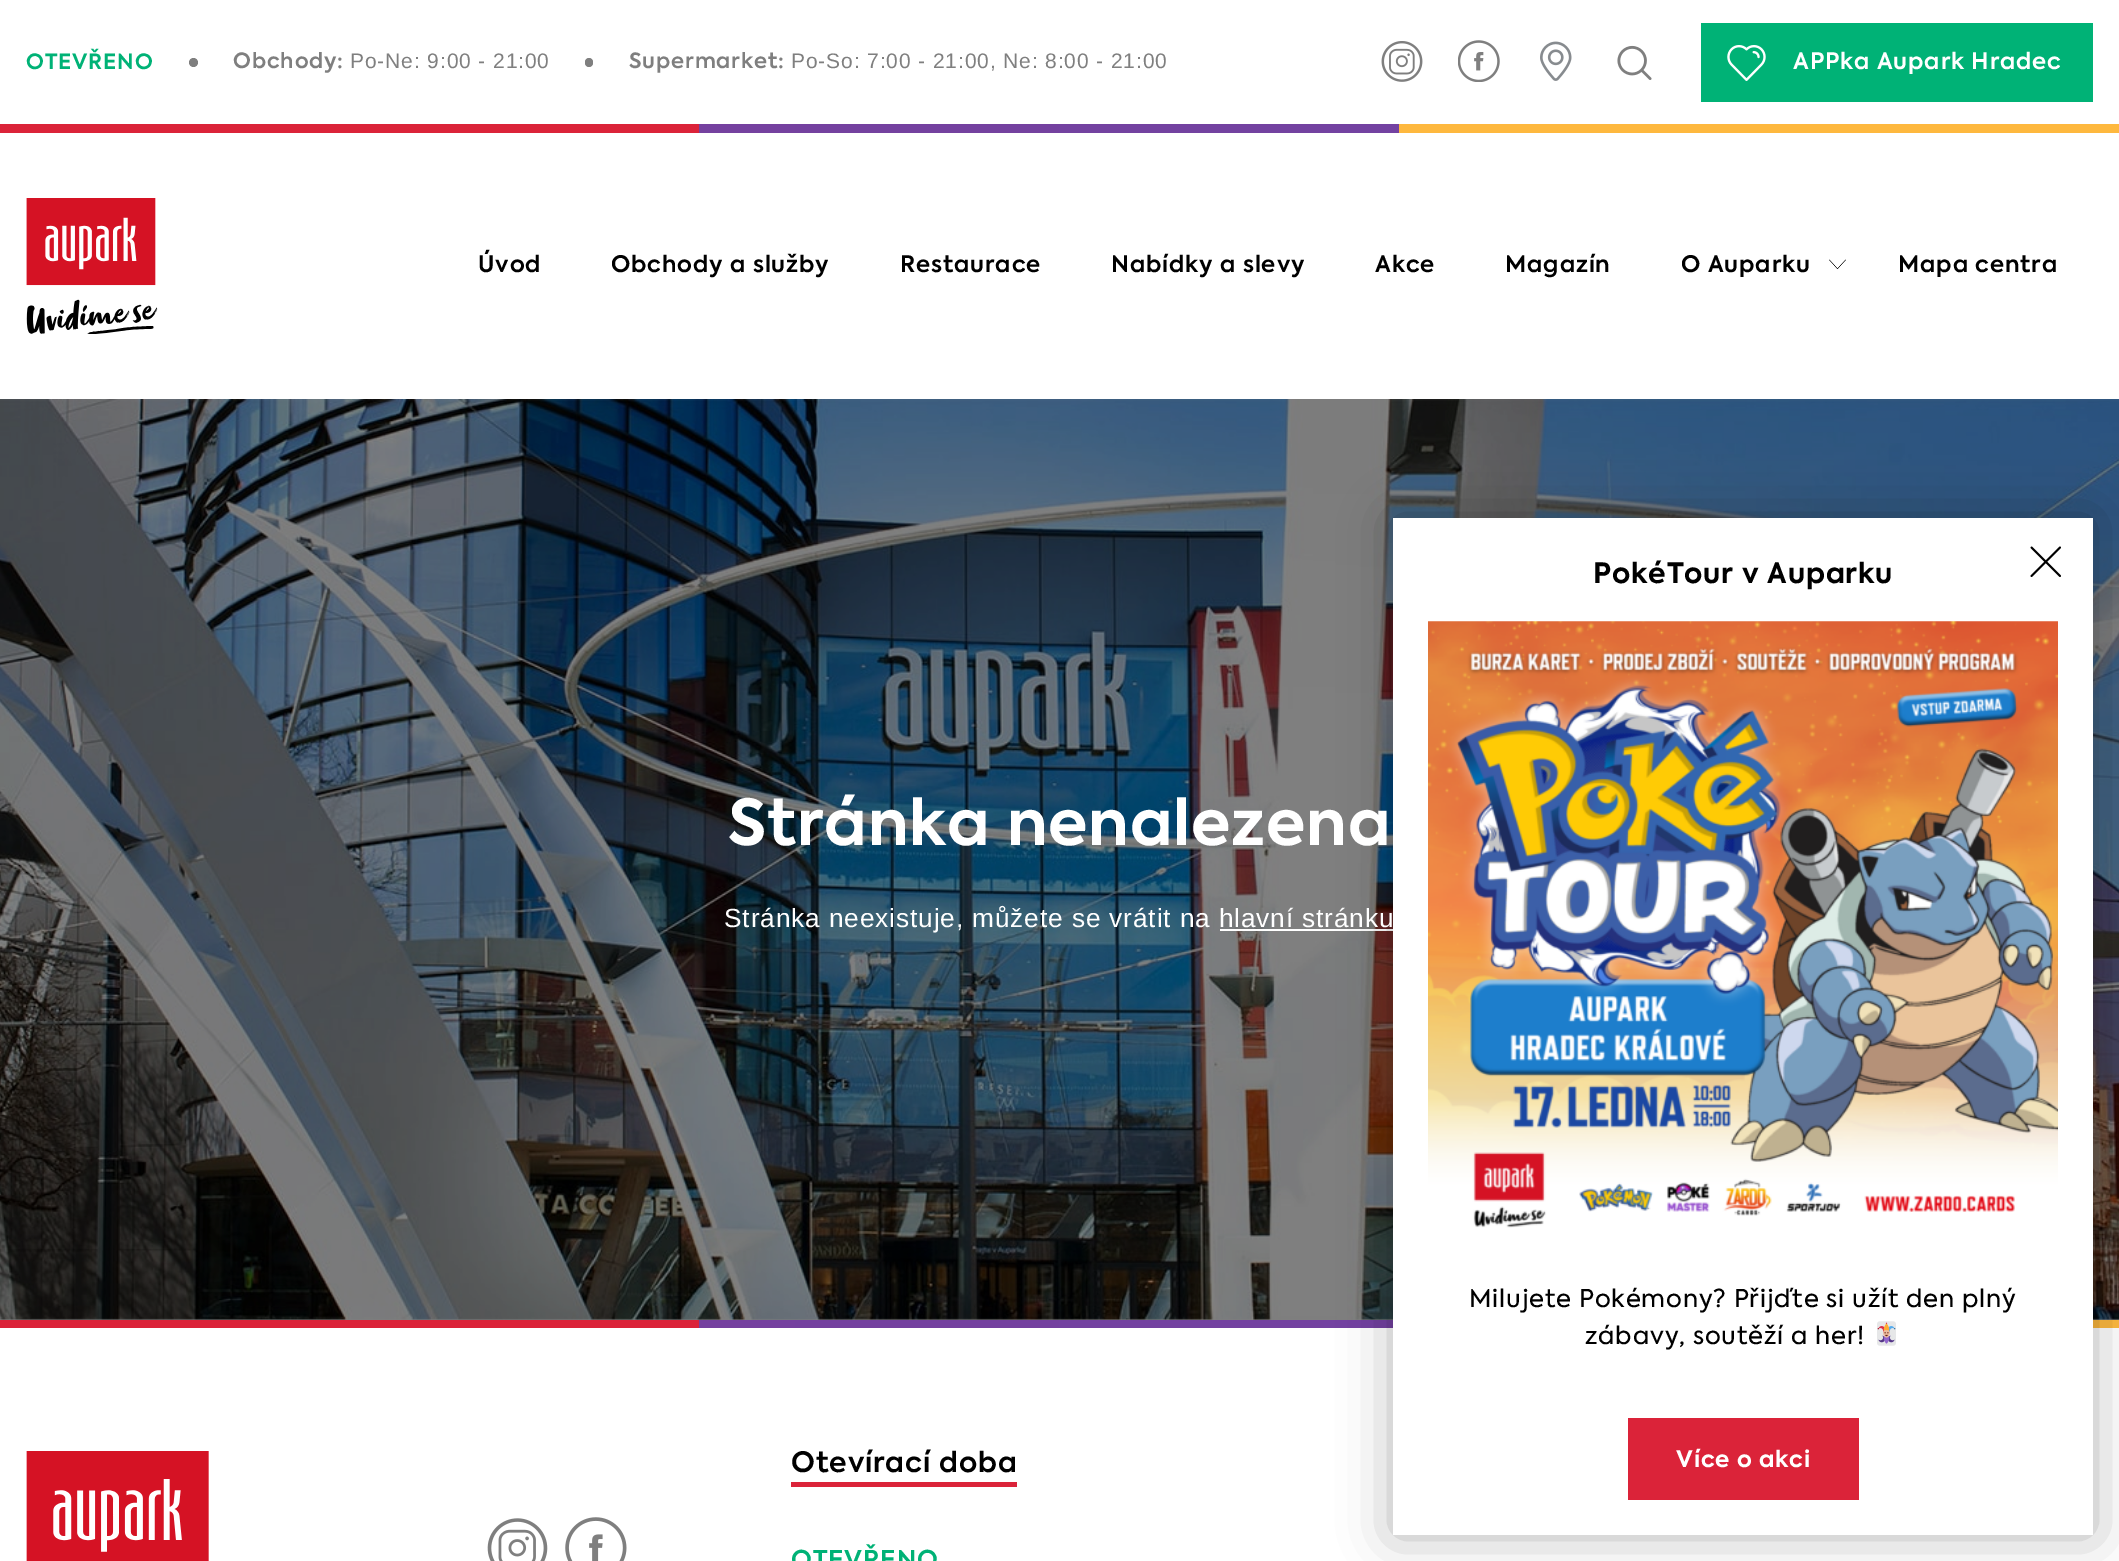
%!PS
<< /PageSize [2119 1561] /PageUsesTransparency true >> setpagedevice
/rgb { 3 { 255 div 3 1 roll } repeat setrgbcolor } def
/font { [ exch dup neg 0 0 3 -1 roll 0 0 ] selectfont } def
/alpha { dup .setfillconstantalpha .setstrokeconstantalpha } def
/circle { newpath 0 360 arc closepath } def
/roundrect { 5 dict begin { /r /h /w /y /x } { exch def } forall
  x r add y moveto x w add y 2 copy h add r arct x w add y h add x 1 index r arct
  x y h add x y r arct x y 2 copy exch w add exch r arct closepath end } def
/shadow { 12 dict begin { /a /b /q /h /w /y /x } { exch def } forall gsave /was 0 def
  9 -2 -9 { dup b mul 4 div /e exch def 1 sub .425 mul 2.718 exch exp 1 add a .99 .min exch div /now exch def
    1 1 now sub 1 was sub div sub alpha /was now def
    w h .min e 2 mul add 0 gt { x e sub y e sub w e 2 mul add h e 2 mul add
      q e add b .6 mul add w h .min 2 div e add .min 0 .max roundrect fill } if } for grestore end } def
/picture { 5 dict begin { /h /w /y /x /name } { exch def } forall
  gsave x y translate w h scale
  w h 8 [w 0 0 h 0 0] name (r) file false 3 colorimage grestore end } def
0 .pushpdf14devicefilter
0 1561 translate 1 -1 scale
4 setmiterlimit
255 255 255 rgb
0 0 2119 1561 rectfill
128 128 128 rgb
0 1319 2119 1 rectfill
127 127 127 rgb
193.5 62.5 4.5 circle fill
585 58 8 9 4 roundrect fill
(img_01.rgb) 1381 41 42 41 picture
(img_02.rgb) 1458 40 42 42 picture
(img_03.rgb) 1540 41 32 40 picture
(img_04.rgb) 1617 45 35 35 picture
0 178 118 rgb
1701 23 392 79 rectfill
(img_05.rgb) 1727 45 39 36 picture
gsave 0 124 moveto 2119 0 rlineto 0 9 rlineto -2119 0 rlineto closepath clip newpath
<< /ShadingType 2 /ColorSpace /DeviceRGB /Coords [0 129 2119 129] /Extend [true true] /Function << /FunctionType 3 /Domain [0 1] /Functions [<< /FunctionType 2 /Domain [0 1] /C0 [0.859 0.137 0.224] /C1 [0.859 0.137 0.224] /N 1 >> << /FunctionType 2 /Domain [0 1] /C0 [0.459 0.255 0.624] /C1 [0.451 0.259 0.631] /N 1 >> << /FunctionType 2 /Domain [0 1] /C0 [0.996 0.722 0.243] /C1 [0.996 0.722 0.243] /N 1 >>] /Bounds [0.33 0.66] /Encode [0 1 0 1 0 1] >> >> shfill grestore
(img_06.rgb) 26 198 132 136 picture
(img_07.rgb) 1829 259 17 10 picture
(img_08.rgb) 0 399 2119 921 picture
255 255 255 rgb
1220 929 175 2 rectfill
gsave 0 1320 moveto 2119 0 rlineto 0 8 rlineto -2119 0 rlineto closepath clip newpath
<< /ShadingType 2 /ColorSpace /DeviceRGB /Coords [0 1324 2119 1324] /Extend [true true] /Function << /FunctionType 3 /Domain [0 1] /Functions [<< /FunctionType 2 /Domain [0 1] /C0 [0.859 0.137 0.224] /C1 [0.859 0.137 0.224] /N 1 >> << /FunctionType 2 /Domain [0 1] /C0 [0.459 0.255 0.624] /C1 [0.451 0.259 0.631] /N 1 >> << /FunctionType 2 /Domain [0 1] /C0 [0.996 0.722 0.243] /C1 [0.996 0.722 0.243] /N 1 >>] /Bounds [0.33 0.66] /Encode [0 1 0 1 0 1] >> >> shfill grestore
0 0 0 rgb
1393 518 700 1017 0 26 0.3 shadow
255 255 255 rgb
1393 518 700 1017 rectfill
(img_09.rgb) 1428 621 630 607 picture
(img_10.rgb) 1877 1321 19 25 picture
219 35 57 rgb
1628 1418 231 82 rectfill
(img_11.rgb) 2030 546 31 31 picture
(img_12.rgb) 26 1451 183 110 picture
(img_13.rgb) 487 1518 61 43 picture
(img_14.rgb) 565 1517 62 44 picture
791 1482 226 5 rectfill
/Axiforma-SemiBold 21 font
0 178 118 rgb
26 69 moveto 0.88 0 (OTEVŘENO) ashow
127 127 127 rgb
233 68 moveto 0.88 0 (Obchody:) ashow
/LiberationSans-Regular 21 font
350 68 moveto 0.88 0 (Po-Ne: 9:00 - 21:00) ashow
/Axiforma-SemiBold 21 font
629 68 moveto 0.88 0 (Supermarket:) ashow
/LiberationSans-Regular 21 font
791 68 moveto 0.88 0 (Po-So: 7:00 - 21:00, Ne: 8:00 - 21:00) ashow
/Axiforma-SemiBold 22.75 font
255 255 255 rgb
1793 69 moveto 0.88 0 (APPka Aupark Hradec) ashow
0 0 0 rgb
478 272 moveto 0.88 0 (Úvod) ashow
611 272 moveto 0.88 0 (Obchody a služby) ashow
900 272 moveto 0.88 0 (Restaurace) ashow
1111 272 moveto 0.88 0 (Nabídky a slevy) ashow
1375 272 moveto 0.88 0 (Akce) ashow
1505 272 moveto 0.88 0 (Magazín) ashow
1681 272 moveto 0.88 0 (O Auparku) ashow
1898 272 moveto 0.88 0 (Mapa centra) ashow
/Axiforma-Bold 63 font
255 255 255 rgb
728 845 moveto 0.88 0 (Stránka nenalezena) ashow
/LiberationSans-Regular 26.25 font
724 927 moveto 0.88 0 (Stránka neexistuje, můžete se vrátit na hlavní stránku) ashow
/Axiforma-Bold 28 font
0 0 0 rgb
1593 583 moveto 0.88 0 (PokéTour v Auparku) ashow
/Axiforma-Regular 24.5 font
1469 1307 moveto 0.88 0 (Milujete Pokémony? Přijďte si užít den plný) ashow
1585 1344 moveto 0.88 0 (zábavy, soutěží a her!) ashow
/Axiforma-Bold 22.75 font
255 255 255 rgb
1676 1467 moveto 0.88 0 (Více o akci) ashow
/Axiforma-SemiBold 28 font
0 0 0 rgb
791 1472 moveto 0.88 0 (Otevírací doba) ashow
/Axiforma-SemiBold 24.5 font
0 178 118 rgb
791 1568 moveto 0.88 0 (OTEVŘENO) ashow
.poppdf14devicefilter showpage
